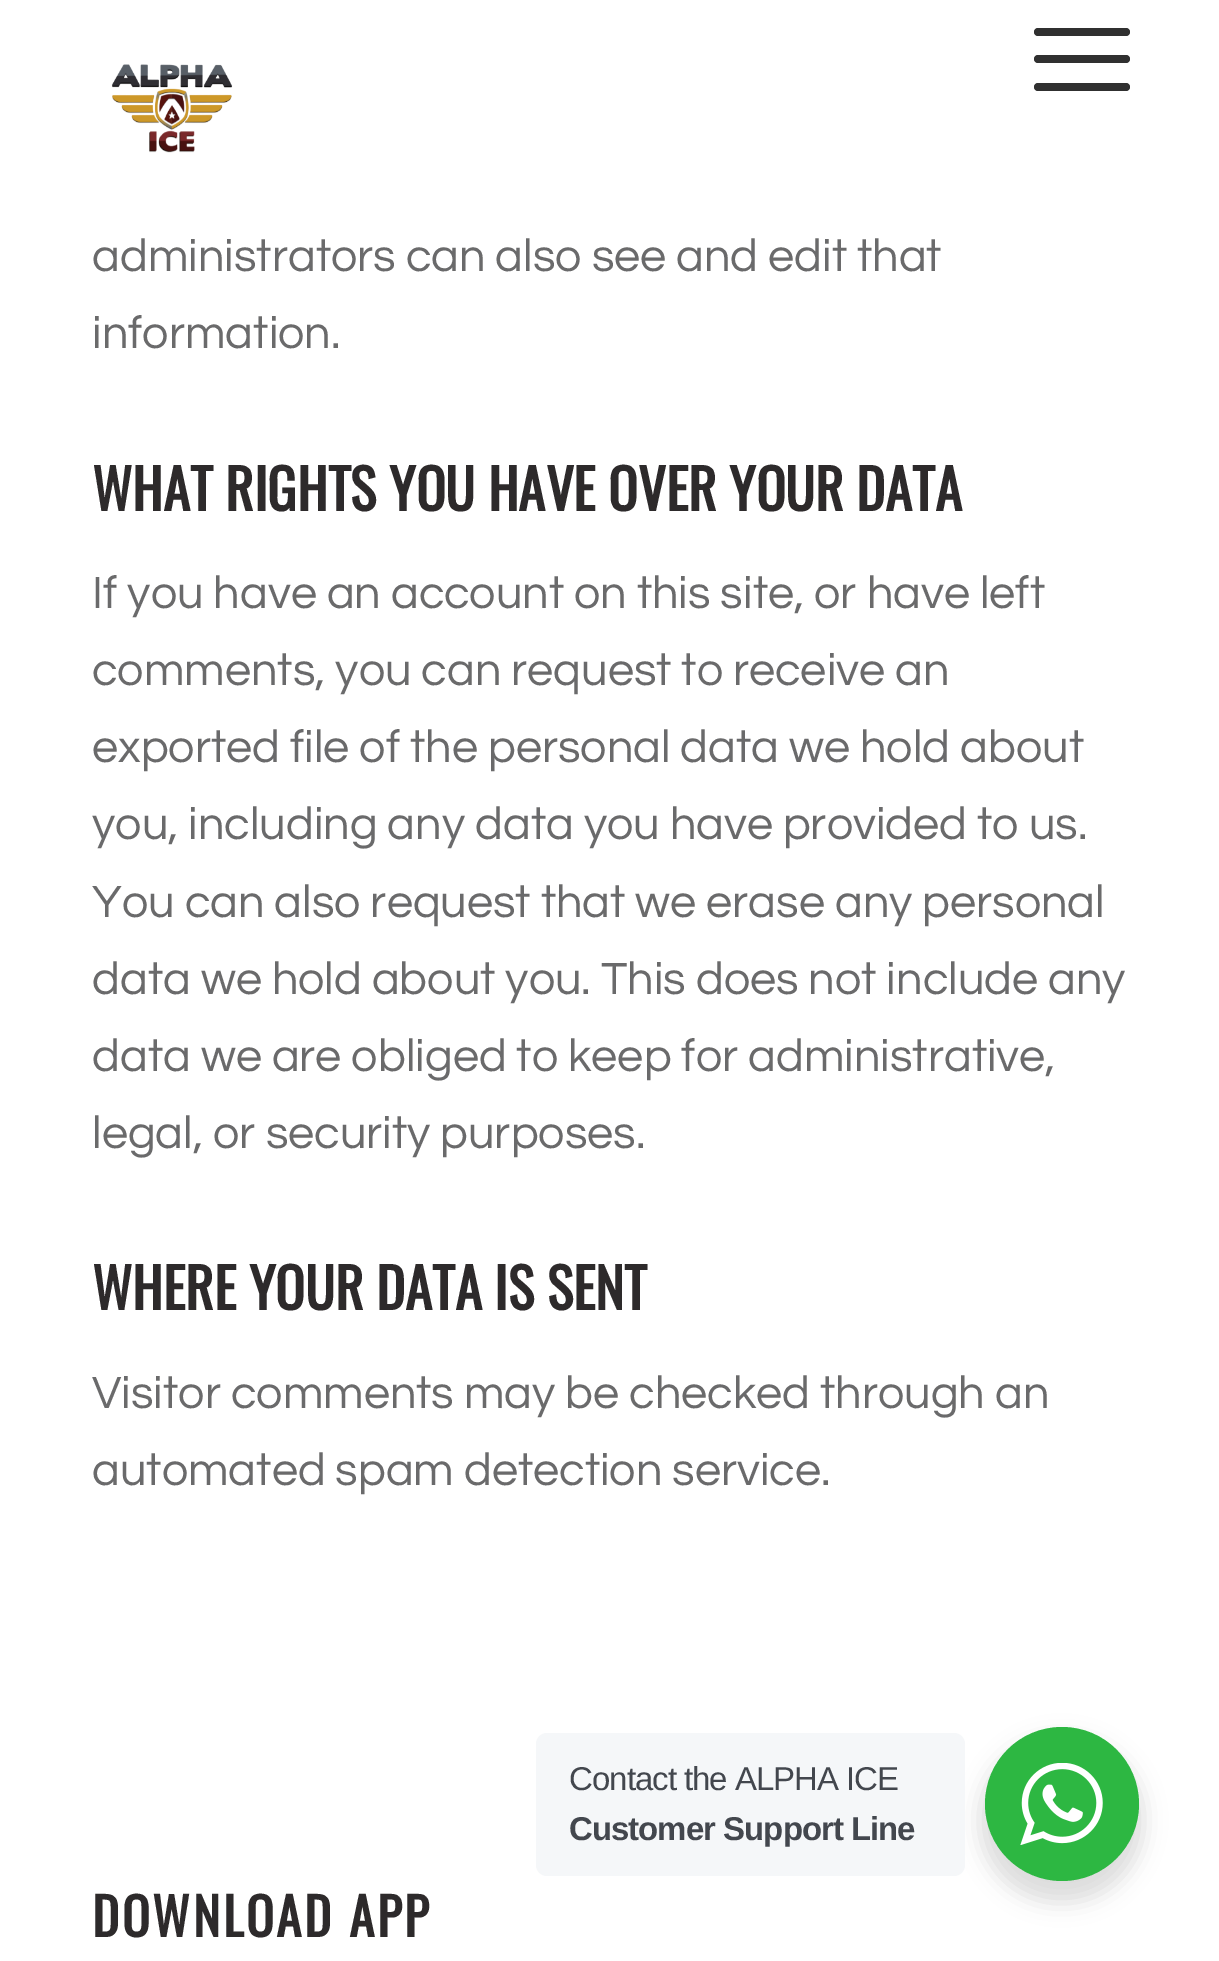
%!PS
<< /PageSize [1219 1961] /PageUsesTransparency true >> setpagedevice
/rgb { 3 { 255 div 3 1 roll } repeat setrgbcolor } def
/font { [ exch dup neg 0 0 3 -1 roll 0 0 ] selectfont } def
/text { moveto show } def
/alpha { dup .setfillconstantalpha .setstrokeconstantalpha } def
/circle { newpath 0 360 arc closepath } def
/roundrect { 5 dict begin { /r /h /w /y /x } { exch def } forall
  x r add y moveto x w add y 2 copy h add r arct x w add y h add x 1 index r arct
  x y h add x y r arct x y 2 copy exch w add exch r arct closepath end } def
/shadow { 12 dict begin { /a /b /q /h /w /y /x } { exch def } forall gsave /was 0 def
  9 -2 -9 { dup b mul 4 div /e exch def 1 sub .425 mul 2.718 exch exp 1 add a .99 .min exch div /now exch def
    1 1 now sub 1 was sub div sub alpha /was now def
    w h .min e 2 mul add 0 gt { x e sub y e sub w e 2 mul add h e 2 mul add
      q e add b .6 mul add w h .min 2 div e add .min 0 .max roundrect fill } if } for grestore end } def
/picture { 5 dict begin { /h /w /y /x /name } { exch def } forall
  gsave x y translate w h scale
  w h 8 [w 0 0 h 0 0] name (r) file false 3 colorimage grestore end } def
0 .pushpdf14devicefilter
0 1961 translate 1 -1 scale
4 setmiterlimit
255 255 255 rgb
0 0 1219 1961 rectfill
(img_01.rgb) 111 64 122 89 picture
48 48 48 rgb
1034 55 96 8 4 roundrect fill
1034 28 96 8 4 roundrect fill
1034 83 96 8 4 roundrect fill
0 0 0 rgb
979 1738 165 165 82.5 11 0.14 shadow
245 247 249 rgb
536 1733 429 143 11 roundrect fill
45 183 66 rgb
1062 1804 77 circle fill
(img_02.rgb) 1020 1763 83 82 picture
/Questrial-Regular 46.75 font
106 106 107 rgb
(administrators can also see and edit that) 92 271 text
(information.) 92 348 text
/Oswald-Bold 55 font
45 42 43 rgb
(WHAT RIGHTS YOU HAVE OVER YOUR DATA) 92 511 text
/Questrial-Regular 46.75 font
106 106 107 rgb
(If you have an account on this site, or have left) 92 608 text
(comments, you can request to receive an) 92 685 text
(exported file of the personal data we hold about) 92 762 text
(you, including any data you have provided to us.) 92 839 text
(You can also request that we erase any personal) 92 917 text
(data we hold about you. This does not include any) 92 994 text
(data we are obliged to keep for administrative,) 92 1071 text
(legal, or security purposes.) 92 1148 text
/Oswald-Bold 55 font
45 42 43 rgb
(WHERE YOUR DATA IS SENT) 92 1310 text
/Questrial-Regular 46.75 font
106 106 107 rgb
(Visitor comments may be checked through an) 92 1408 text
(automated spam detection service.) 92 1485 text
/Oswald-Bold 51.5 font
45 42 43 rgb
92 1937 moveto 2.75 0 (DOWNLOAD APP) ashow
/LiberationSans-Regular 33 font
67 71 78 rgb
569 1790 moveto -1 0 (Contact the ALPHA ICE) ashow
/LiberationSans-Bold 33 font
569 1840 moveto -1 0 (Customer Support Line) ashow
.poppdf14devicefilter showpage
